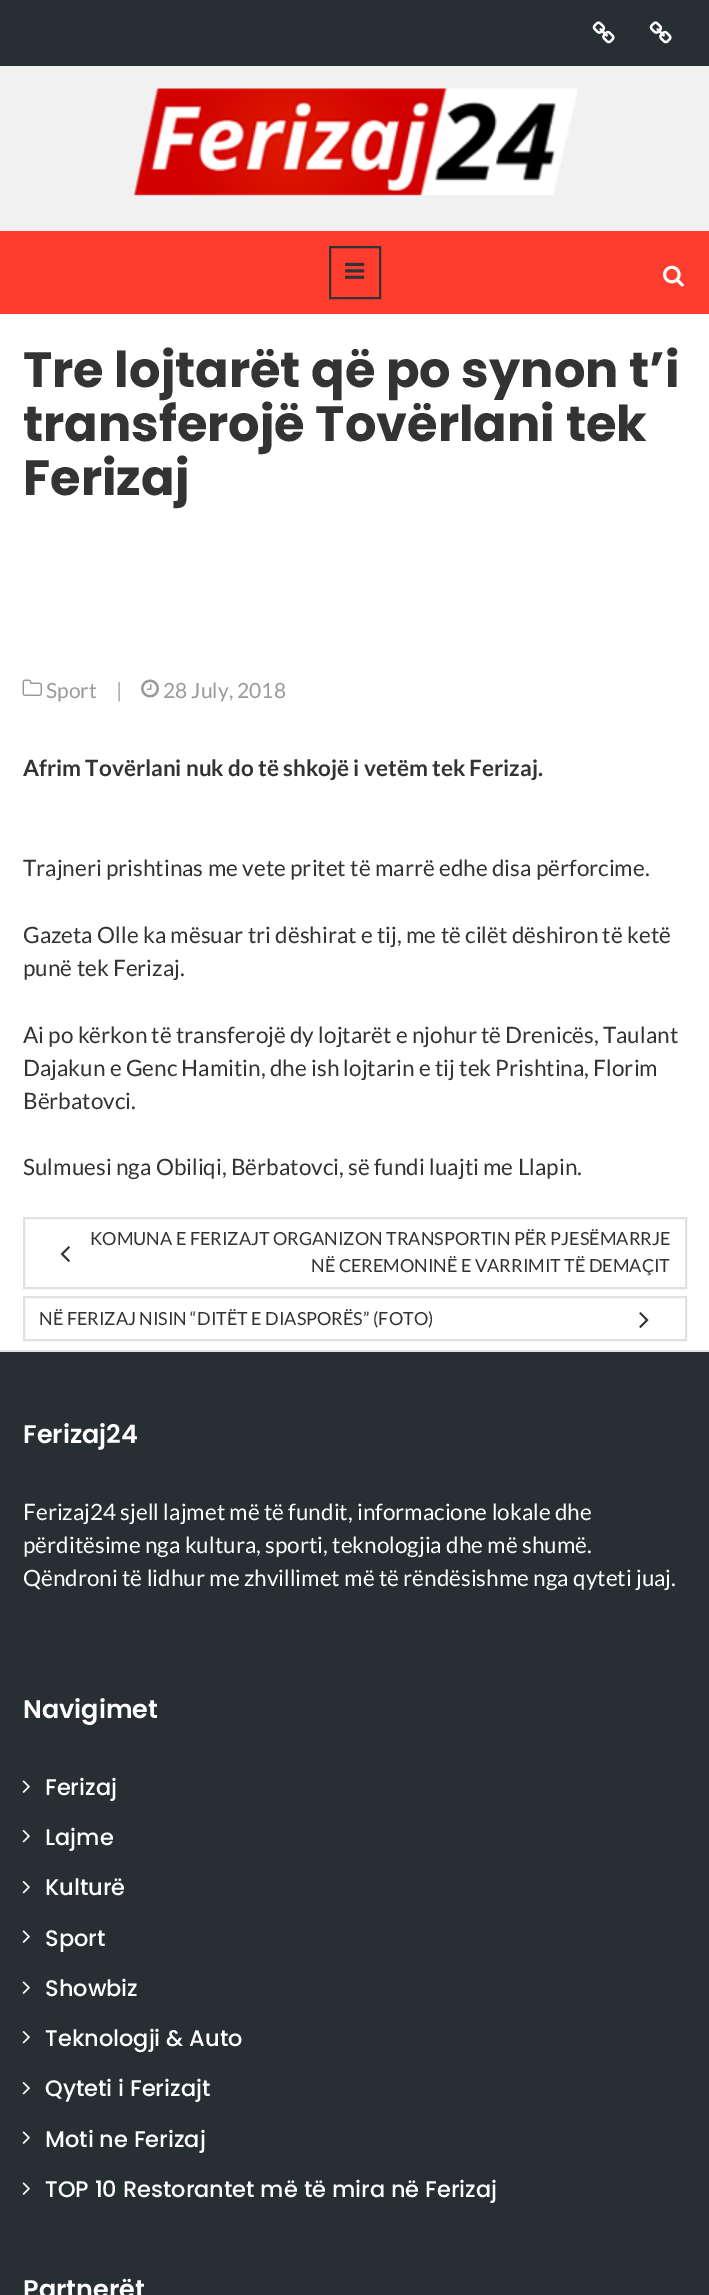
%!PS
<< /PageSize [709 2295] >> setpagedevice
/rgb { 3 { 255 div 3 1 roll } repeat setrgbcolor } def
/font { [ exch dup neg 0 0 3 -1 roll 0 0 ] selectfont } def
/text { moveto show } def
/picture { 5 dict begin { /h /w /y /x /name } { exch def } forall
  gsave x y translate w h scale
  w h 8 [w 0 0 h 0 0] name (r) file false 3 colorimage grestore end } def
0 2295 translate 1 -1 scale
4 setmiterlimit
255 255 255 rgb
0 0 709 2295 rectfill
39 47 50 rgb
0 0 709 66 rectfill
(img_01.rgb) 592 21 23 23 picture
(img_01.rgb) 649 21 23 23 picture
241 241 241 rgb
0 66 709 165 rectfill
(img_02.rgb) 133 88 445 108 picture
255 61 46 rgb
0 231 709 83 rectfill
51 51 51 rgb
2 setlinewidth
330 247 50 51 rectstroke
(img_03.rgb) 345 262 20 17 picture
(img_04.rgb) 663 265 21 22 picture
(img_05.rgb) 22 679 20 17 picture
(img_06.rgb) 141 679 18 19 picture
225 225 225 rgb
24 1218 662 70 rectstroke
(img_07.rgb) 60 1246 10 16 picture
24 1297 662 43 rectstroke
(img_08.rgb) 639 1312 10 16 picture
0 1350 709 2 rectfill
39 47 50 rgb
0 1352 709 943 rectfill
(img_09.rgb) 22 1780 8 13 picture
(img_10.rgb) 22 1829 8 14 picture
(img_10.rgb) 22 1880 8 14 picture
(img_09.rgb) 22 1930 8 13 picture
(img_09.rgb) 22 1981 8 13 picture
(img_10.rgb) 22 2030 8 14 picture
(img_10.rgb) 22 2081 8 14 picture
(img_09.rgb) 22 2131 8 13 picture
(img_09.rgb) 22 2182 8 13 picture
/Poppins-Bold 49.5 font
51 51 51 rgb
(Tre lojtarët që po synon t’i) 23 387 text
(transferojë Tovërlani tek) 23 441 text
(Ferizaj) 23 495 text
/Lato-Regular 21 font
154 154 154 rgb
(Sport) 46 698 text
(|) 116 698 text
(28 July, 2018) 163 698 text
/Lato-Bold 22.5 font
51 51 51 rgb
(Afrim Tovërlani nuk do të shkojë i vetëm tek Ferizaj.) 23 776 text
/Lato-Regular 22.5 font
(Trajneri prishtinas me vete pritet të marrë edhe disa përforcime.) 23 876 text
(Gazeta Olle ka mësuar tri dëshirat e tij, me të cilët dëshiron të ketë) 23 943 text
(punë tek Ferizaj.) 23 976 text
(Ai po kërkon të transferojë dy lojtarët e njohur të Drenicës, Taulant) 23 1043 text
(Dajakun e Genc Hamitin, dhe ish lojtarin e tij tek Prishtina, Florim) 23 1076 text
(Bërbatovci.) 23 1109 text
(Sulmuesi nga Obiliqi, Bërbatovci, së fundi luajti me Llapin.) 23 1175 text
/Lato-Regular 18 font
(KOMUNA E FERIZAJT ORGANIZON TRANSPORTIN PËR PJESËMARRJE) 90 1245 text
(NË CEREMONINË E VARRIMIT TË DEMAÇIT) 311 1272 text
(NË FERIZAJ NISIN “DITËT E DIASPORËS” \(FOTO\)) 39 1325 text
/Poppins-SemiBold 25.5 font
255 255 255 rgb
(Ferizaj24) 23 1443 text
/Lato-Regular 22.5 font
(Ferizaj24 sjell lajmet më të fundit, informacione lokale dhe) 23 1520 text
(përditësime nga kultura, sporti, teknologjia dhe më shumë.) 23 1553 text
(Qëndroni të lidhur me zhvillimet më të rëndësishme nga qyteti juaj.) 23 1586 text
/Poppins-SemiBold 25.5 font
(Navigimet) 23 1718 text
/Poppins-Medium 22.5 font
(Ferizaj) 45 1795 text
(Lajme) 45 1845 text
(Kulturë) 45 1895 text
(Sport) 45 1946 text
(Showbiz) 45 1996 text
(Teknologji & Auto) 45 2046 text
(Qyteti i Ferizajt) 45 2096 text
(Moti ne Ferizaj) 45 2147 text
(TOP 10 Restorantet më të mira në Ferizaj) 45 2197 text
/Poppins-SemiBold 25.5 font
(Partnerët) 23 2298 text
showpage
